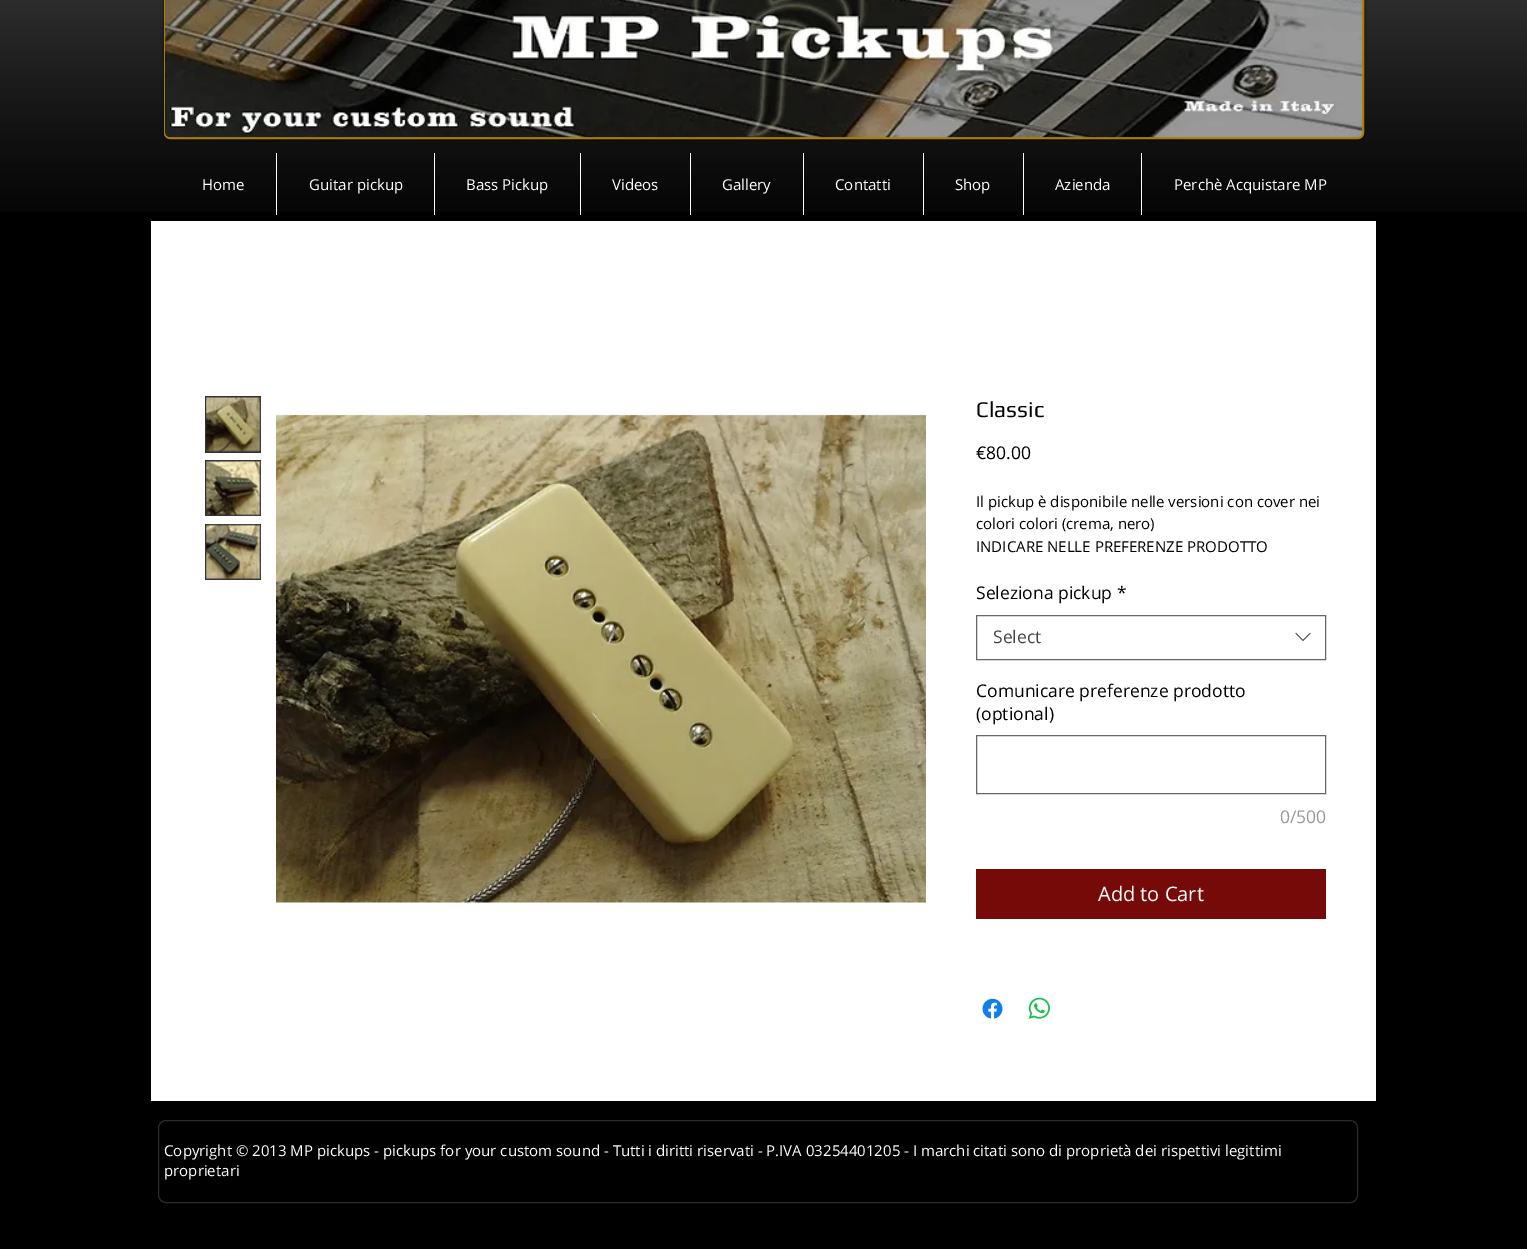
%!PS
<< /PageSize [1527 1249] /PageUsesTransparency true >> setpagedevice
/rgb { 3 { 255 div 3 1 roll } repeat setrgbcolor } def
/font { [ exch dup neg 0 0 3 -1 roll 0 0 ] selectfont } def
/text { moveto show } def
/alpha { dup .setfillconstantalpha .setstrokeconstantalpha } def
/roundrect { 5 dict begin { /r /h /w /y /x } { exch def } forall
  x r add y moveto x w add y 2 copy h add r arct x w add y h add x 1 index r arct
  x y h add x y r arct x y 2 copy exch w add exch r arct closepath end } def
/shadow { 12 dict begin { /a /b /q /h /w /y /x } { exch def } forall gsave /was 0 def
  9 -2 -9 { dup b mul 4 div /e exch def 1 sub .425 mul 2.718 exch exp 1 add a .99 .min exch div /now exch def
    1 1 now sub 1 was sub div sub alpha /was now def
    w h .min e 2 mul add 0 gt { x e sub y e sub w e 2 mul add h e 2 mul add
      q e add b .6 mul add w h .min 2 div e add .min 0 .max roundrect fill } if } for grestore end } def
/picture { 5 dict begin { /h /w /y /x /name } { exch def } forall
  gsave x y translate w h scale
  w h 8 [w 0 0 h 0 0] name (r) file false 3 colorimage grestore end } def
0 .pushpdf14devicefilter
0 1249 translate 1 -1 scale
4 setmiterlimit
0 0 0 rgb
0 0 1527 1249 rectfill
(img_01.rgb) 0 0 1527 212 picture
164 -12 1200 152 6 2 0.5 shadow
168 127 6 rgb
164.5 -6.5 1199 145 5.5 roundrect gsave fill grestore
stroke
(img_02.rgb) 165 0 1198 138 picture
255 255 255 rgb
276 153 1 62 rectfill
434 153 1 62 rectfill
580 153 1 62 rectfill
690 153 1 62 rectfill
803 153 1 62 rectfill
923 153 1 62 rectfill
1023 153 1 62 rectfill
1141 153 1 62 rectfill
151 221 1225 880 rectfill
51 51 51 rgb
205 396 56 57 rectfill
(img_03.rgb) 206 397 55 55 picture
205 460 56 56 rectfill
(img_04.rgb) 206 460 55 56 picture
205 524 56 56 rectfill
(img_05.rgb) 206 524 55 56 picture
(img_06.rgb) 276 414 650 489 picture
102 102 102 rgb
976.5 615.5 349 44 rectstroke
(img_07.rgb) 1295 632 16 10 picture
976.5 735.5 349 58 rectstroke
118 10 8 rgb
976 869 350 50 rectfill
(img_08.rgb) 982 998 21 21 picture
(img_09.rgb) 1028 997 22 22 picture
43 43 43 rgb
158.5 1120.5 1199 82 7.5 roundrect stroke
/OpenSans-Regular 15 font
255 255 255 rgb
(Home) 202 190 text
(Guitar pickup) 309 190 text
(Bass Pickup) 466 190 text
(Videos) 612 190 text
(Gallery) 722 190 text
(Contatti) 835 190 text
(Shop) 955 190 text
(Azienda) 1055 190 text
(Perchè Acquistare MP) 1174 190 text
/Play-Regular 22.5 font
0 0 0 rgb
(Classic) 976 417 text
/OpenSans-Regular 17.5 font
(€80.00) 976 459 text
/OpenSans-Regular 15 font
(Il pickup è disponibile nelle versioni con cover nei) 976 507 text
(colori colori \(crema, nero\)) 976 529 text
(INDICARE NELLE PREFERENZE PRODOTTO) 976 552 text
/OpenSans-Regular 17.5 font
(Seleziona pickup) 976 599 text
(*) 1117 599 text
68 68 68 rgb
(Select) 993 643 text
0 0 0 rgb
(Comunicare preferenze prodotto) 976 697 text
(\(optional\)) 976 720 text
153 153 153 rgb
(0/500) 1280 823 text
/OpenSans-Regular 20 font
255 255 255 rgb
(Add to Cart) 1098 901 text
/OpenSans-Regular 15 font
(Copyright © 2013 MP pickups - pickups for your custom sound - Tutti i diritti riservati - P.IVA 03254401205 - I marchi citati sono di proprietà dei rispettivi legittimi) 164 1156 text
(proprietari) 164 1176 text
.poppdf14devicefilter showpage
